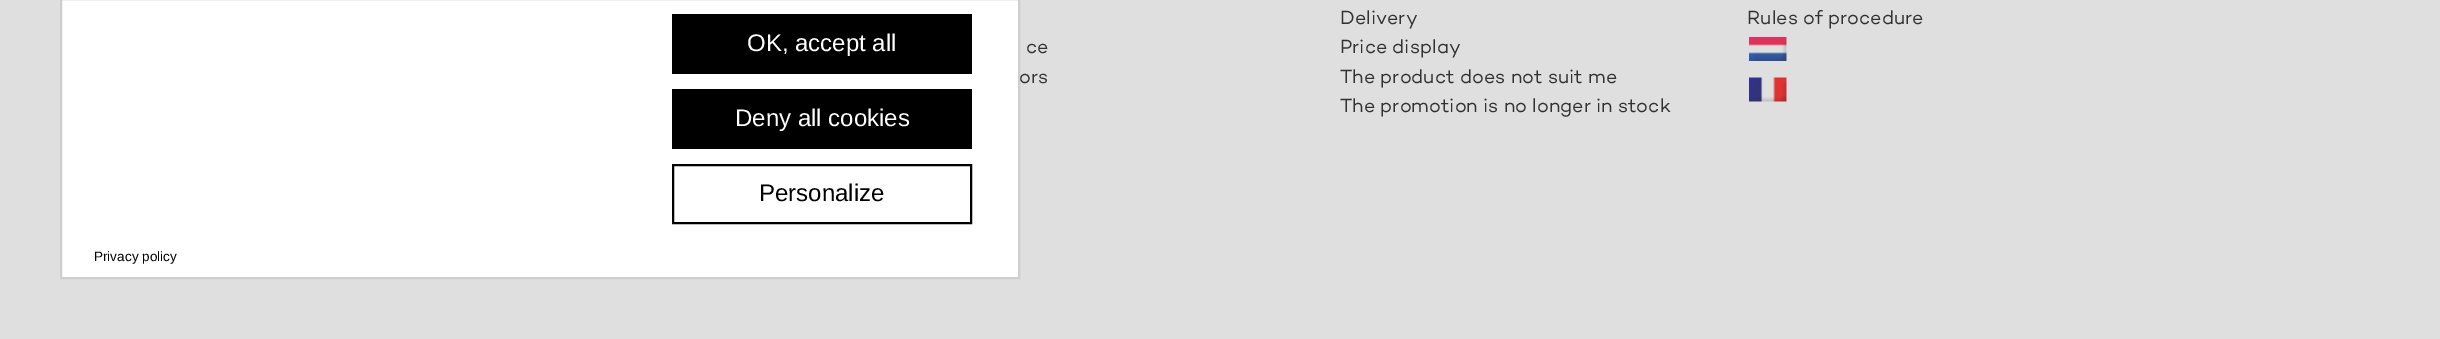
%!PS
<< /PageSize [2440 339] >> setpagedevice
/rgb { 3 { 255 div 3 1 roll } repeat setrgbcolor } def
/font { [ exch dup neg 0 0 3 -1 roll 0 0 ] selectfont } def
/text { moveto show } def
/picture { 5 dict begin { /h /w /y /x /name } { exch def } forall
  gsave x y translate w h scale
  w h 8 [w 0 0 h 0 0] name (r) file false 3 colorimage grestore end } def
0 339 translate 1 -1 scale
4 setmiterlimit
223 223 223 rgb
0 0 2440 339 rectfill
255 255 255 rgb
61 -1 moveto 958 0 rlineto 0 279 rlineto -958 0 rlineto closepath gsave fill grestore
206 206 206 rgb
2 setlinewidth
stroke
0 0 0 rgb
672 14 300 60 rectfill
672 89 300 60 rectfill
673 165 298 58 rectstroke
(img_01.rgb) 1749 37 38 24 picture
(img_02.rgb) 1749 77 38 25 picture
/LiberationSans-Regular 24 font
255 255 255 rgb
(OK, accept all) 747 51 text
(Deny all cookies) 735 126 text
0 0 0 rgb
(Personalize) 759 201 text
gsave
95 234 82 45 rectclip
/LiberationSans-Regular 13.5 font
(Privacy policy) 94 261 text
grestore
/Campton-Regular 19.5 font
50 50 50 rgb
(ce) 1026 53 text
(ors) 1019 83 text
(Delivery) 1340 24 text
(Price display) 1340 53 text
(The product does not suit me) 1340 83 text
(The promotion is no longer in stock) 1340 112 text
(Rules of procedure) 1747 24 text
showpage
